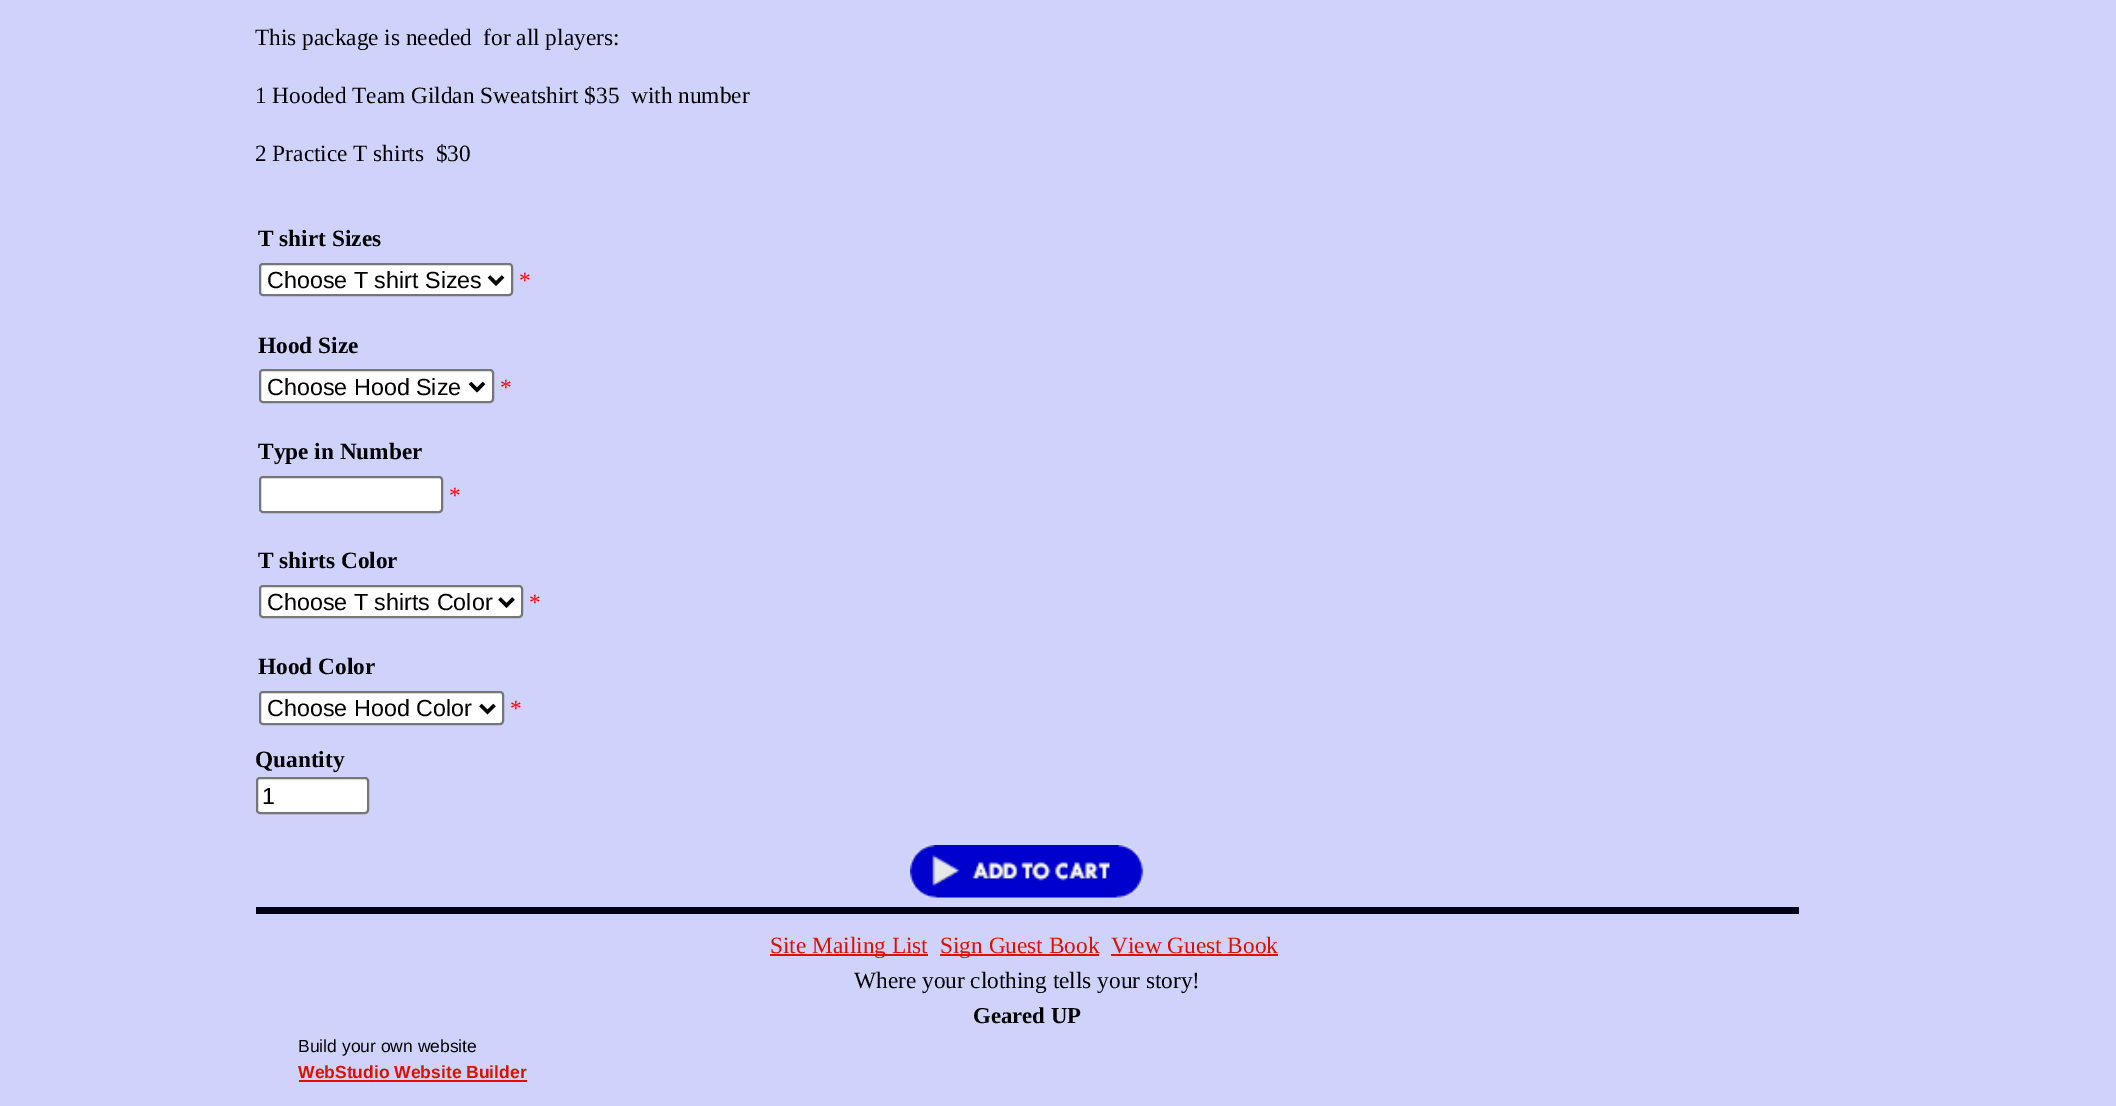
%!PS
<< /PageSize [2116 1106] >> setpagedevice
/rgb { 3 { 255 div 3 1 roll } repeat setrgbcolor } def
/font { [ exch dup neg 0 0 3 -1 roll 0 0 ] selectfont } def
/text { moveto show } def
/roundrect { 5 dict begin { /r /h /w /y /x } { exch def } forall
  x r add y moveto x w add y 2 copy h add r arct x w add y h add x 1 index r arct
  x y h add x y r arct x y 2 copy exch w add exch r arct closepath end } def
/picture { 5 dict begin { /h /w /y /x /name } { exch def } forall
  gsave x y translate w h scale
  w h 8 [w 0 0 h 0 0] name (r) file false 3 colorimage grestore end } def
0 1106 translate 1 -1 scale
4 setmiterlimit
207 211 252 rgb
0 0 2116 1106 rectfill
255 255 255 rgb
260 264 252 31 3 roundrect gsave fill grestore
118 118 118 rgb
2 setlinewidth
stroke
0 0 0 rgb
3.5 setlinewidth
489 276.5 moveto 7 7 rlineto 7 -7 rlineto stroke
255 255 255 rgb
260 370 233 32 3 roundrect gsave fill grestore
118 118 118 rgb
2 setlinewidth
stroke
0 0 0 rgb
3.5 setlinewidth
470 383 moveto 7 7 rlineto 7 -7 rlineto stroke
255 255 255 rgb
260 477 182 35 3 roundrect gsave fill grestore
118 118 118 rgb
2 setlinewidth
stroke
255 255 255 rgb
260 586 262 31 3 roundrect gsave fill grestore
118 118 118 rgb
stroke
0 0 0 rgb
3.5 setlinewidth
499.5 598.5 moveto 7 7 rlineto 7 -7 rlineto stroke
255 255 255 rgb
260 692 243 32 3 roundrect gsave fill grestore
118 118 118 rgb
2 setlinewidth
stroke
0 0 0 rgb
3.5 setlinewidth
480.5 705 moveto 7 7 rlineto 7 -7 rlineto stroke
255 255 255 rgb
257 778 111 35 3 roundrect gsave fill grestore
118 118 118 rgb
2 setlinewidth
stroke
(img_01.rgb) 910 845 234 53 picture
0 0 23 rgb
256 907 1543 7 rectfill
222 16 0 rgb
770 954 158 2 rectfill
940 954 159 2 rectfill
1111 954 167 2 rectfill
299 1080 228 2 rectfill
/LiberationSerif-Regular 23.3 font
0 0 0 rgb
(This package is needed  for all players:) 255 45 text
(1 Hooded Team Gildan Sweatshirt $35  with number) 255 103 text
(2 Practice T shirts  $30) 255 161 text
/LiberationSerif-Bold 23.3 font
(T shirt Sizes) 258 246 text
/LiberationSans-Regular 23.3 font
(Choose T shirt Sizes) 267 288 text
/LiberationSerif-Regular 23.3 font
255 0 0 rgb
(*) 519 288 text
/LiberationSerif-Bold 23.3 font
0 0 0 rgb
(Hood Size) 258 353 text
/LiberationSans-Regular 23.3 font
(Choose Hood Size) 267 395 text
/LiberationSerif-Regular 23.3 font
255 0 0 rgb
(*) 500 395 text
/LiberationSerif-Bold 23.3 font
0 0 0 rgb
(Type in Number) 258 459 text
/LiberationSerif-Regular 23.3 font
255 0 0 rgb
(*) 449 503 text
/LiberationSerif-Bold 23.3 font
0 0 0 rgb
(T shirts Color) 258 568 text
/LiberationSans-Regular 23.3 font
(Choose T shirts Color) 267 610 text
/LiberationSerif-Regular 23.3 font
255 0 0 rgb
(*) 529 610 text
/LiberationSerif-Bold 23.3 font
0 0 0 rgb
(Hood Color) 258 674 text
/LiberationSans-Regular 23.3 font
(Choose Hood Color) 267 716 text
/LiberationSerif-Regular 23.3 font
255 0 0 rgb
(*) 510 716 text
/LiberationSerif-Bold 23.3 font
0 0 0 rgb
(Quantity) 255 767 text
/LiberationSans-Regular 23.3 font
(1) 262 804 text
/LiberationSerif-Regular 23.3 font
222 16 0 rgb
(Site Mailing List) 770 953 text
(Sign Guest Book) 940 953 text
(View Guest Book) 1111 953 text
0 0 0 rgb
(Where your clothing tells your story!) 854 988 text
/LiberationSerif-Bold 22.75 font
(Geared UP) 973 1023 text
/LiberationSans-Regular 17.5 font
(Build your own website) 298 1052 text
/LiberationSans-Bold 17.5 font
222 16 0 rgb
(WebStudio Website Builder) 298 1078 text
showpage
